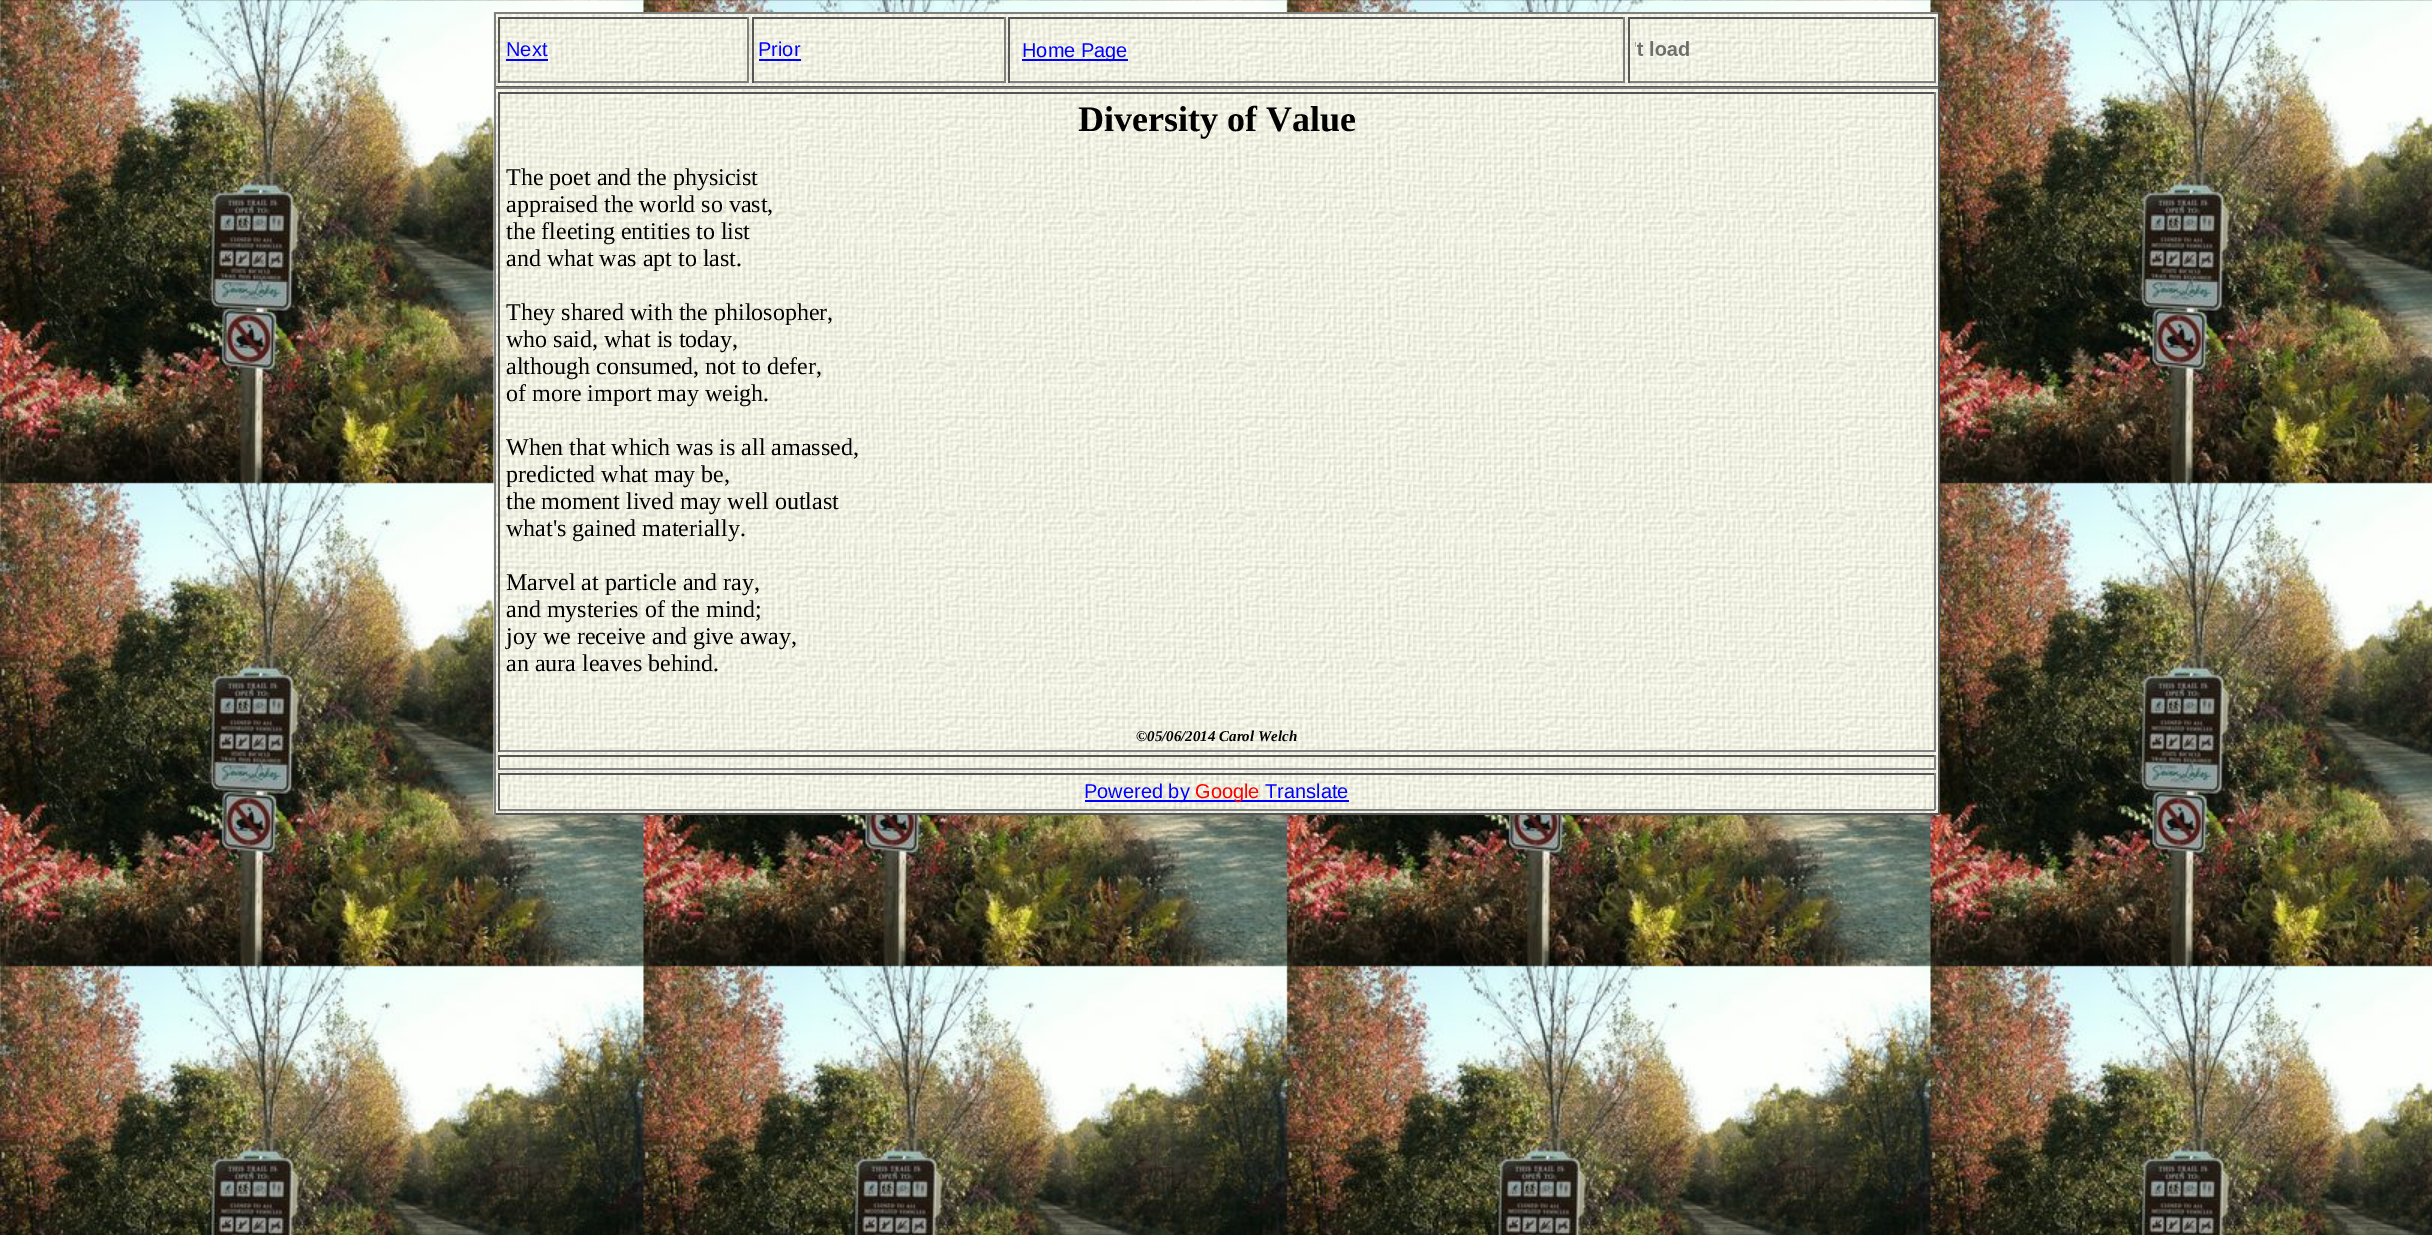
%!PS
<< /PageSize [2432 1235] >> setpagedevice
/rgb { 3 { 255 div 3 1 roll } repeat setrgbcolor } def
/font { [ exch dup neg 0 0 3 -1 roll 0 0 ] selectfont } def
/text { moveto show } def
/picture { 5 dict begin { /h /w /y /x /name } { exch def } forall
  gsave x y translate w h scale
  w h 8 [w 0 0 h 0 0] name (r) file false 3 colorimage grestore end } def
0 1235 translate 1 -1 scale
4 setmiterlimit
255 255 255 rgb
0 0 2432 1235 rectfill
(img_01.rgb) 0 0 2432 1235 picture
(img_02.rgb) 493 12 1445 75 picture
128 128 128 rgb
494 12 1446 2 rectfill
85 85 85 rgb
1938 12 2 75 rectfill
494 86 1446 1 rectfill
128 128 128 rgb
494 12 2 75 rectfill
85 85 85 rgb
498 17 251 2 rectfill
128 128 128 rgb
747 17 2 66 rectfill
498 81 251 2 rectfill
85 85 85 rgb
498 17 2 66 rectfill
0 0 255 rgb
506 59 42 2 rectfill
85 85 85 rgb
752 17 253 2 rectfill
128 128 128 rgb
1004 17 2 66 rectfill
752 81 253 2 rectfill
85 85 85 rgb
752 17 2 66 rectfill
0 0 255 rgb
759 59 42 2 rectfill
85 85 85 rgb
1008 17 617 2 rectfill
128 128 128 rgb
1623 17 2 66 rectfill
1008 81 617 2 rectfill
85 85 85 rgb
1008 17 2 66 rectfill
0 0 255 rgb
1022 59 106 2 rectfill
85 85 85 rgb
1628 17 307 2 rectfill
128 128 128 rgb
1934 17 2 66 rectfill
1628 81 307 2 rectfill
85 85 85 rgb
1628 17 2 66 rectfill
(img_03.rgb) 1635 36 54 27 picture
(img_04.rgb) 493 87 1445 728 picture
128 128 128 rgb
494 87 1446 2 rectfill
85 85 85 rgb
1938 87 2 728 rectfill
494 813 1446 2 rectfill
128 128 128 rgb
494 87 2 728 rectfill
85 85 85 rgb
498 92 1437 2 rectfill
128 128 128 rgb
1934 92 2 660 rectfill
498 750 1437 2 rectfill
85 85 85 rgb
498 92 2 660 rectfill
498 755 1437 2 rectfill
128 128 128 rgb
1934 755 2 15 rectfill
498 768 1437 2 rectfill
85 85 85 rgb
498 755 2 15 rectfill
498 773 1437 2 rectfill
128 128 128 rgb
1934 773 2 37 rectfill
498 809 1437 2 rectfill
85 85 85 rgb
498 773 2 37 rectfill
0 0 255 rgb
1085 800 264 2 rectfill
/LiberationSans-Regular 20 font
(Next) 506 56 text
(Prior) 758 56 text
(Home Page) 1022 57 text
/LiberationSerif-Bold 36 font
0 0 0 rgb
(Diversity of Value) 1078 131 text
/LiberationSerif-Regular 24 font
(The poet and the physicist) 506 185 text
(appraised the world so vast,) 506 212 text
(the fleeting entities to list) 506 239 text
(and what was apt to last.) 506 266 text
(They shared with the philosopher,) 506 320 text
(who said, what is today,) 506 347 text
(although consumed, not to defer,) 506 374 text
(of more import may weigh.) 506 401 text
(When that which was is all amassed,) 506 455 text
(predicted what may be,) 506 482 text
(the moment lived may well outlast) 506 509 text
(what's gained materially.) 506 536 text
(Marvel at particle and ray,) 506 590 text
(and mysteries of the mind;) 506 617 text
(joy we receive and give away,) 506 644 text
(an aura leaves behind.) 506 671 text
/LiberationSerif-Bold 15 font
(©) 1136 741 text
/LiberationSerif-BoldItalic 15 font
(05/06/2014 Carol Welch) 1147 741 text
/LiberationSans-Regular 20 font
0 0 255 rgb
(Powered by) 1084 798 text
255 0 0 rgb
(Google) 1195 798 text
0 0 255 rgb
(Translate) 1265 798 text
showpage
